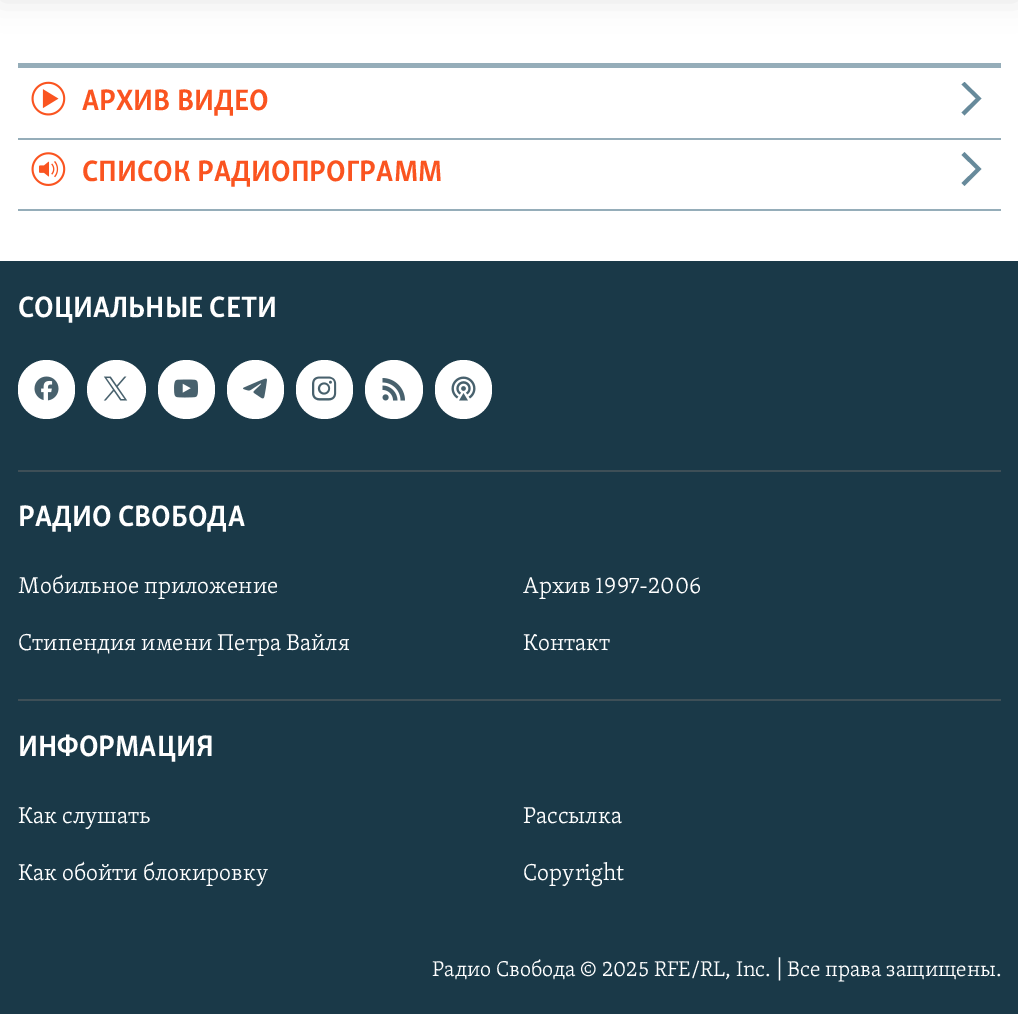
%!PS
<< /PageSize [1018 1014] /PageUsesTransparency true >> setpagedevice
/rgb { 3 { 255 div 3 1 roll } repeat setrgbcolor } def
/font { [ exch dup neg 0 0 3 -1 roll 0 0 ] selectfont } def
/text { moveto show } def
/alpha { dup .setfillconstantalpha .setstrokeconstantalpha } def
/circle { newpath 0 360 arc closepath } def
/roundrect { 5 dict begin { /r /h /w /y /x } { exch def } forall
  x r add y moveto x w add y 2 copy h add r arct x w add y h add x 1 index r arct
  x y h add x y r arct x y 2 copy exch w add exch r arct closepath end } def
/shadow { 12 dict begin { /a /b /q /h /w /y /x } { exch def } forall gsave /was 0 def
  9 -2 -9 { dup b mul 4 div /e exch def 1 sub .425 mul 2.718 exch exp 1 add a .99 .min exch div /now exch def
    1 1 now sub 1 was sub div sub alpha /was now def
    w h .min e 2 mul add 0 gt { x e sub y e sub w e 2 mul add h e 2 mul add
      q e add b .6 mul add w h .min 2 div e add .min 0 .max roundrect fill } if } for grestore end } def
/picture { 5 dict begin { /h /w /y /x /name } { exch def } forall
  gsave x y translate w h scale
  w h 8 [w 0 0 h 0 0] name (r) file false 3 colorimage grestore end } def
0 .pushpdf14devicefilter
0 1014 translate 1 -1 scale
4 setmiterlimit
255 255 255 rgb
0 0 1018 1014 rectfill
0 0 0 rgb
0 -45 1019 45 0 15 0.1 shadow
149 173 185 rgb
18 63 983 5 rectfill
18 138 983 2 rectfill
(img_01.rgb) 31 81 35 35 picture
103 138 155 rgb
964.5 115.5 moveto 17 -17 rlineto -17 -16.5 rlineto -3 2.5 rlineto 14.5 14 rlineto -14.5 14 rlineto closepath fill
149 173 185 rgb
18 209 983 2 rectfill
(img_02.rgb) 31 152 35 34 picture
103 138 155 rgb
964.5 186 moveto 17 -17 rlineto -17 -17 rlineto -3 3 rlineto 14.5 14 rlineto -14.5 14 rlineto closepath fill
26 57 72 rgb
0 261 1018 753 rectfill
255 255 255 rgb
18 360 57 59 28.5 roundrect fill
(img_03.rgb) 34 376 25 25 picture
116.5 389.5 29.5 circle fill
(img_04.rgb) 103 376 25 25 picture
158 360 57 59 28.5 roundrect fill
(img_05.rgb) 174 379 24 19 picture
227 360 57 59 28.5 roundrect fill
(img_06.rgb) 243 378 24 21 picture
296 360 57 59 28.5 roundrect fill
(img_07.rgb) 312 376 25 25 picture
365 360 58 59 29 roundrect fill
(img_08.rgb) 382 378 23 23 picture
435 360 57 59 28.5 roundrect fill
(img_09.rgb) 451 376 25 25 picture
62 79 87 rgb
18 470 983 2 rectfill
18 699 983 2 rectfill
/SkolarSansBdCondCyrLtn-Bold 30.4 font
250 84 32 rgb
(АРХИВ ВИДЕО) 82 110 text
(СПИСОК РАДИОПРОГРАММ) 82 181 text
255 255 255 rgb
(СОЦИАЛЬНЫЕ СЕТИ) 18 317 text
(РАДИО СВОБОДА) 18 526 text
/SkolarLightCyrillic-Light 23.6 font
(Мобильное приложение) 18 593 text
(Архив 1997-2006) 523 593 text
(Стипендия имени Петра Вайля) 18 650 text
(Контакт) 523 650 text
/SkolarSansBdCondCyrLtn-Bold 30.4 font
(ИНФОРМАЦИЯ) 18 756 text
/SkolarLightCyrillic-Light 23.6 font
(Как слушать) 18 823 text
(Рассылка) 523 823 text
(Как обойти блокировку) 18 880 text
(Copyright) 523 880 text
/SkolarLightCyrillic-Light 21.95 font
(Радио Свобода © 2025 RFE/RL, Inc. | Все права защищены.) 432 976 text
.poppdf14devicefilter showpage
